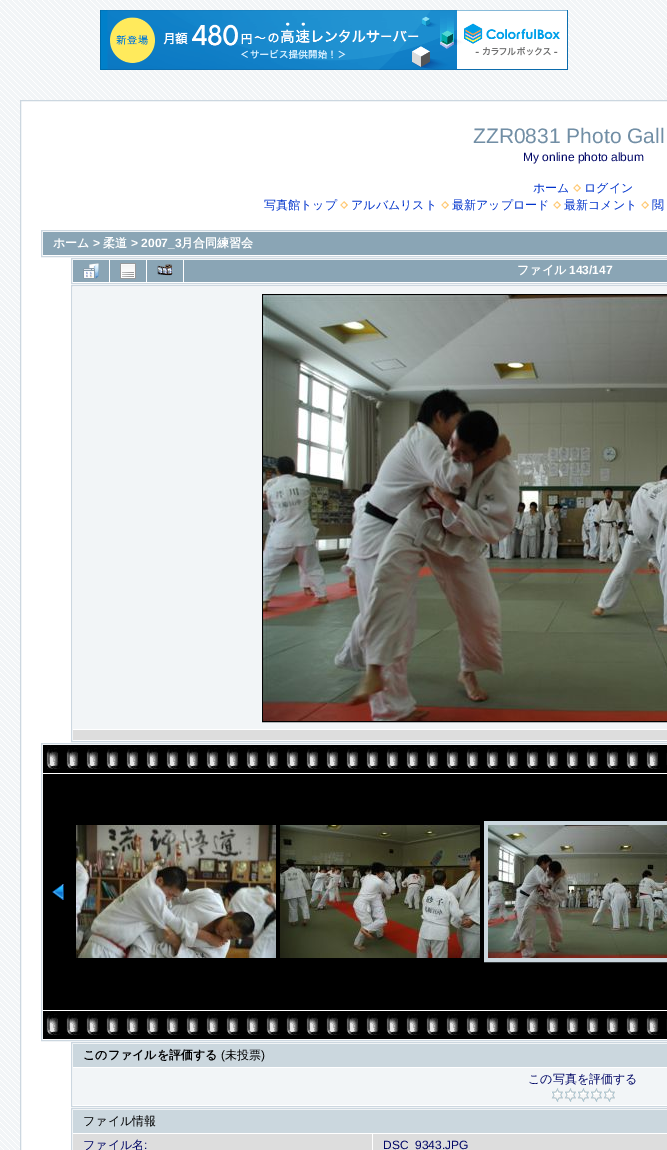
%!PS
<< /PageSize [667 1150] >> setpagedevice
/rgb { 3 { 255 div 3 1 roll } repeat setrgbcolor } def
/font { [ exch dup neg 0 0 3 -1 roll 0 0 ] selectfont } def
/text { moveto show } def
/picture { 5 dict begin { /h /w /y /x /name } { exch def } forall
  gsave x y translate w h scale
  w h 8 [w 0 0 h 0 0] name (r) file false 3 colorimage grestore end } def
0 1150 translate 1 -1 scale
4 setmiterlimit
242 245 247 rgb
0 0 667 1150 rectfill
(img_01.rgb) 0 0 667 1150 picture
(img_02.rgb) 100 10 468 60 picture
255 255 255 rgb
20.5 100.5 moveto 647 0 rlineto 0 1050 rlineto -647 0 rlineto closepath gsave fill grestore
204 215 224 rgb
stroke
(img_03.rgb) 573 184 8 8 picture
(img_03.rgb) 340 201 8 8 picture
(img_03.rgb) 441 201 8 8 picture
(img_03.rgb) 553 201 8 8 picture
(img_03.rgb) 641 201 8 8 picture
41.5 230.5 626 26 rectstroke
138 165 181 rgb
43 232 624 23 rectfill
204 215 224 rgb
71.5 258.5 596 25 rectstroke
138 165 181 rgb
73 260 36 22 rectfill
(img_04.rgb) 83 263 16 16 picture
110 260 36 22 rectfill
(img_05.rgb) 120 263 16 16 picture
147 260 36 22 rectfill
(img_06.rgb) 157 264 16 12 picture
184 260 483 22 rectfill
204 215 224 rgb
71.5 285.5 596 456 rectstroke
242 245 247 rgb
73 287 594 442 rectfill
0 0 0 rgb
262.5 294.5 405 427 rectstroke
(img_07.rgb) 263 295 404 426 picture
221 221 221 rgb
73 730 594 10 rectfill
204 215 224 rgb
41.5 743.5 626 297 rectstroke
0 0 0 rgb
43 745 624 28 rectfill
(img_08.rgb) 46 745 621 24 picture
43 774 624 236 rectfill
(img_09.rgb) 52 884 12 16 picture
(img_10.rgb) 76 825 200 133 picture
(img_11.rgb) 280 825 200 133 picture
203 215 222 rgb
4 setlinewidth
486 823 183 137 rectstroke
(img_12.rgb) 488 825 179 133 picture
0 0 0 rgb
43 1011 624 28 rectfill
(img_08.rgb) 46 1011 621 24 picture
204 215 224 rgb
1 setlinewidth
71.5 1042.5 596 64 rectstroke
203 215 222 rgb
73 1044 594 23 rectfill
242 245 247 rgb
73 1068 594 37 rectfill
(img_13.rgb) 551 1088 13 14 picture
(img_13.rgb) 564 1088 13 14 picture
(img_13.rgb) 577 1088 13 14 picture
(img_13.rgb) 590 1088 13 14 picture
(img_13.rgb) 603 1088 13 14 picture
204 215 224 rgb
71.5 1108.5 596 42 rectstroke
203 215 222 rgb
73 1110 594 23 rectfill
221 221 221 rgb
73 1134 299 16 rectfill
373 1134 294 16 rectfill
/LiberationSans-Regular 21 font
113 142 165 rgb
(ZZR0831 Photo Gall) 473 143 text
/LiberationSans-Regular 12 font
0 6 102 rgb
(My online photo album) 523 161 text
/WenQuanYiZenHei-Medium 12 font
0 51 204 rgb
(ホーム) 533 192 text
(ログイン) 584 192 text
(写真館トップ) 264 209 text
(アルバムリスト) 351 209 text
(最新アップロード) 452 209 text
(最新コメント) 564 209 text
(閲) 652 209 text
/WenQuanYiZenHei-Bold 12 font
255 255 255 rgb
(ホーム) 53 247 text
/LiberationSans-Bold 12 font
(>) 93 247 text
/WenQuanYiZenHei-Bold 12 font
(柔道) 103 247 text
/LiberationSans-Bold 12 font
(> 2007_3) 131 247 text
/WenQuanYiZenHei-Bold 12 font
(月合同練習会) 181 247 text
(ファイル) 517 274 text
/LiberationSans-Bold 12 font
(143/147) 569 274 text
/WenQuanYiZenHei-Bold 12 font
0 0 0 rgb
(このファイルを評価する) 83 1059 text
/LiberationSans-Regular 12 font
(\() 221 1059 text
/WenQuanYiZenHei-Medium 12 font
(未投票) 225 1059 text
/LiberationSans-Regular 12 font
(\)) 261 1059 text
/WenQuanYiZenHei-Medium 12 font
0 6 102 rgb
(この写真を評価する) 528 1083 text
0 0 0 rgb
(ファイル情報) 83 1125 text
0 6 102 rgb
(ファイル名) 83 1149 text
/LiberationSans-Regular 12 font
(:) 144 1149 text
(DSC_9343.JPG) 383 1149 text
showpage
